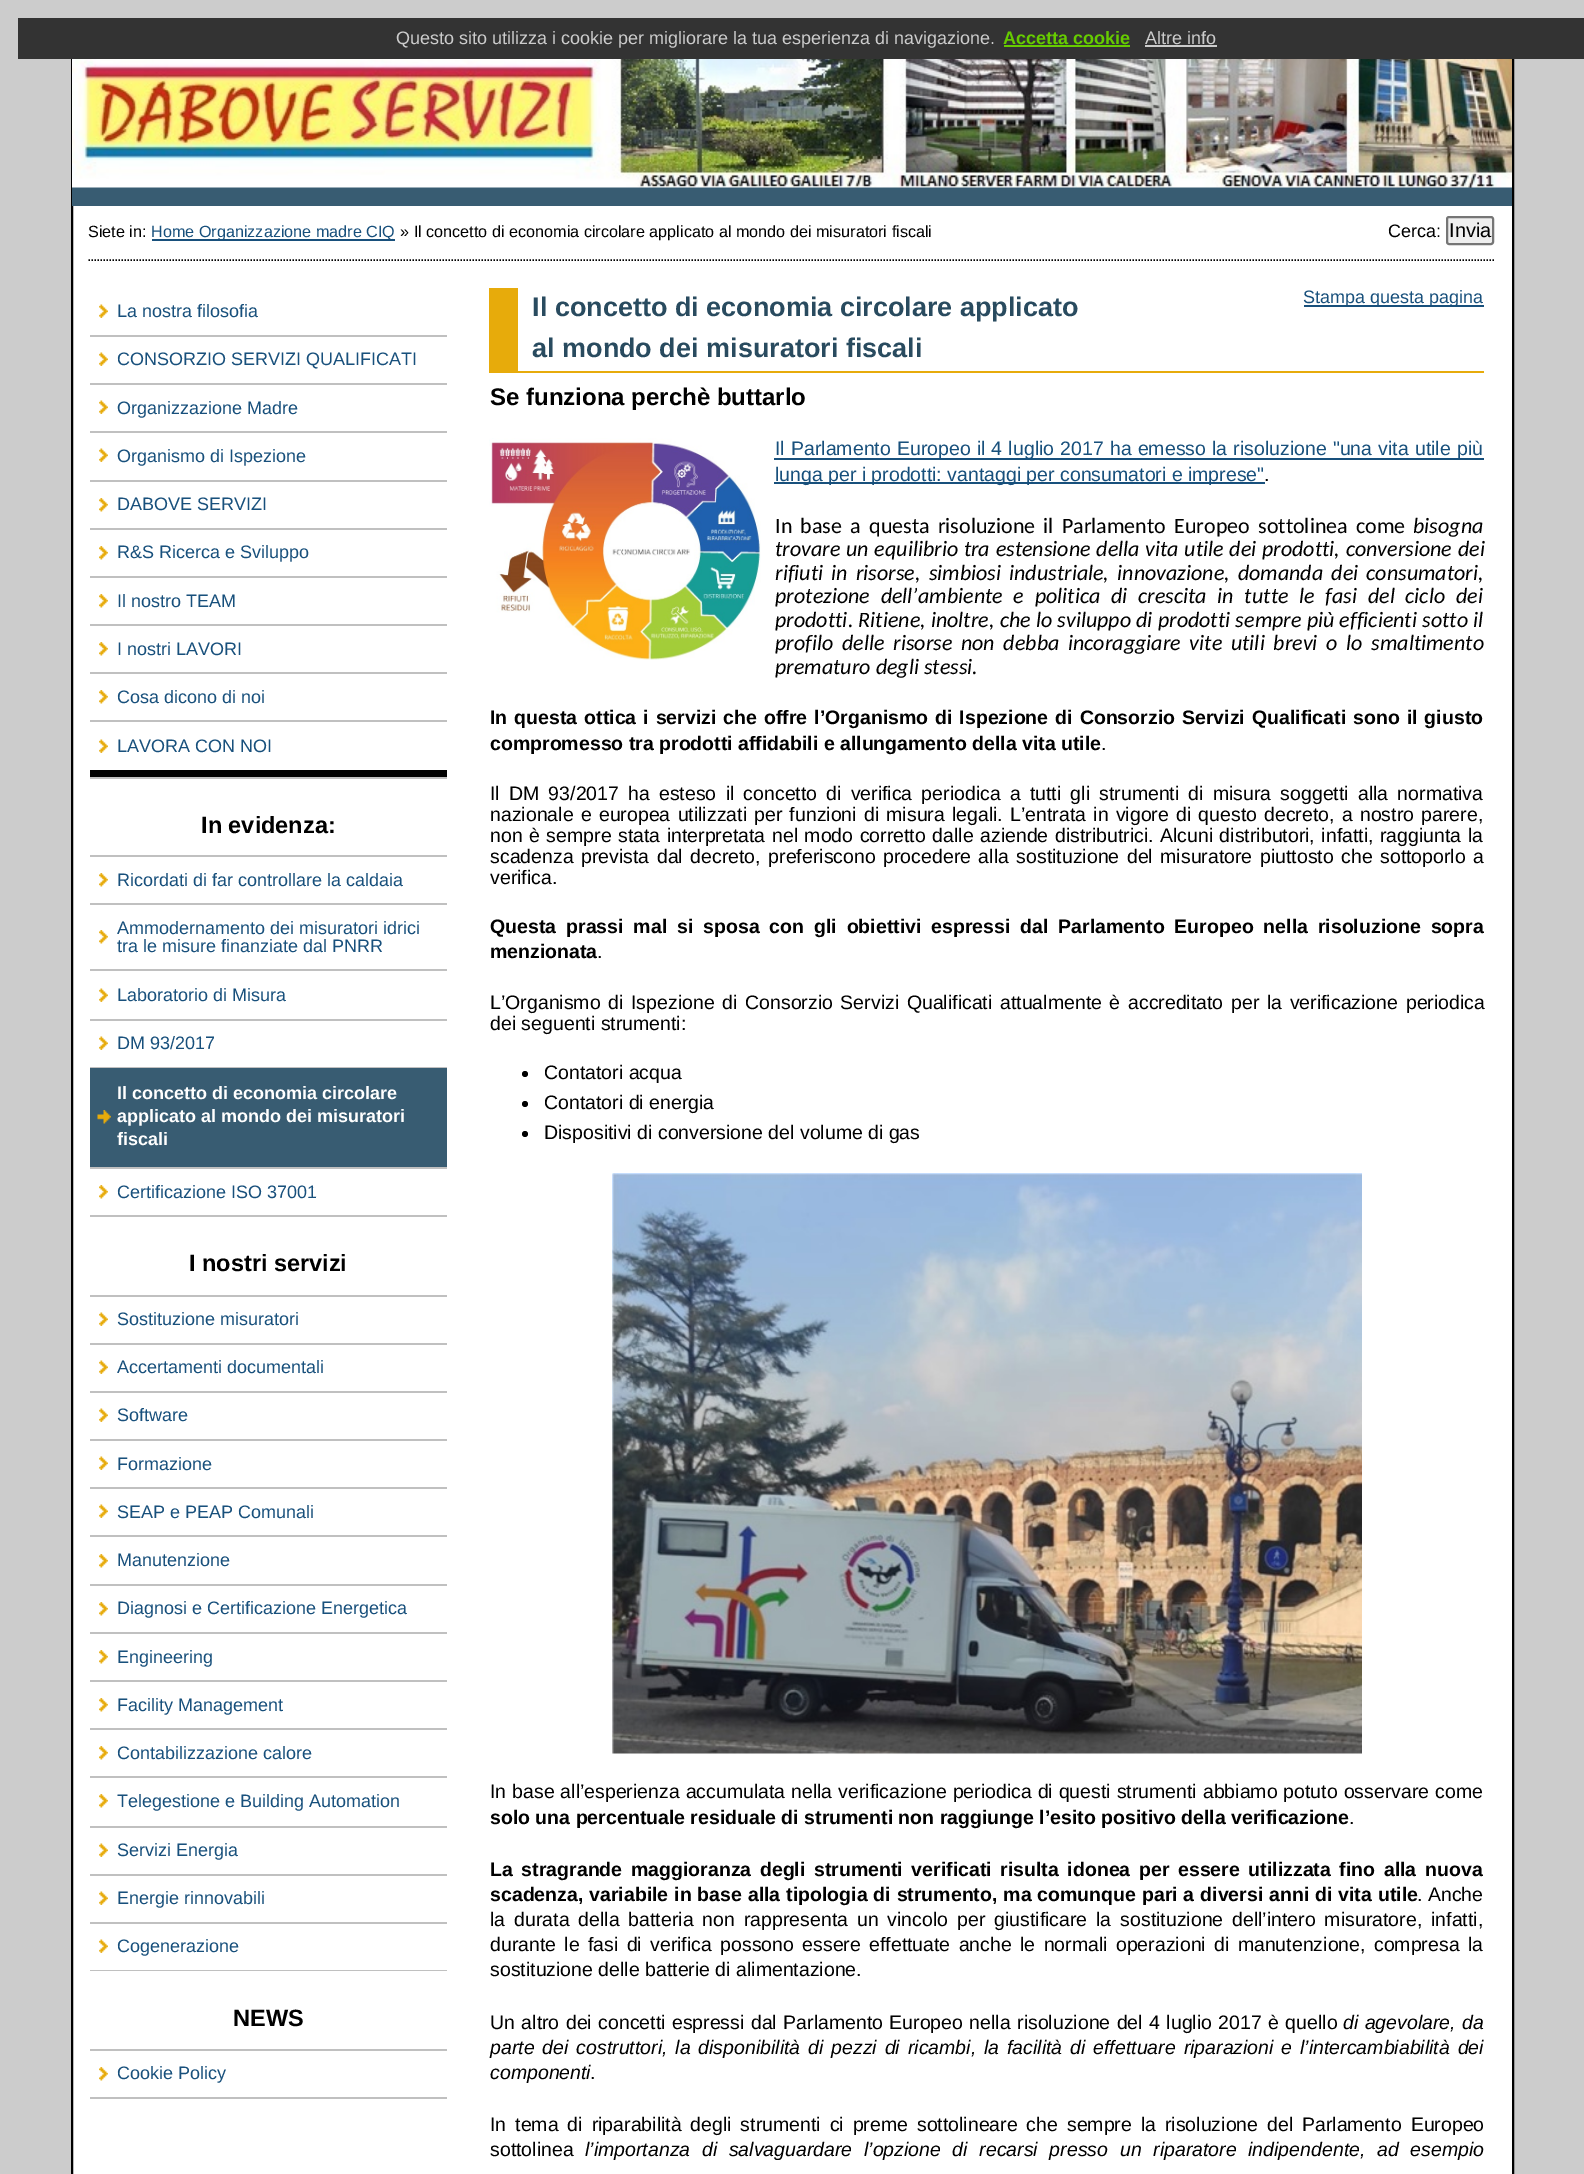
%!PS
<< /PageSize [1584 2174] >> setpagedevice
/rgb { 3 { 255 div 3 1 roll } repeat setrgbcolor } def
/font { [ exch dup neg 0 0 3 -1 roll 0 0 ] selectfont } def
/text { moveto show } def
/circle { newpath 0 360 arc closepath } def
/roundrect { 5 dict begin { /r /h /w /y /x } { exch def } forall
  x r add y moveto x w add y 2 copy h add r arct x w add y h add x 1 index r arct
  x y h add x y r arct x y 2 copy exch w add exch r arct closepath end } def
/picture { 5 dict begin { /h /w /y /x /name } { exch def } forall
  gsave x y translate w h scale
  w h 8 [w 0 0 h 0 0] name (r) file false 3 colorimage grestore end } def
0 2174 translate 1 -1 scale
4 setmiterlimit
204 204 204 rgb
0 0 1584 2174 rectfill
255 255 255 rgb
73 206 1439 1968 rectfill
0 0 0 rgb
2 setlinewidth
72 19 1441 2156 rectstroke
51 51 51 rgb
18 18 1566 41 rectfill
102 204 0 rgb
1004 45 126 2 rectfill
204 204 204 rgb
1145 45 72 2 rectfill
56 92 114 rgb
72 187 1440 19 rectfill
(img_01.rgb) 72 59 1440 129 picture
0 0 0 rgb
1.5 setlinewidth
[1.5 1.5] 0 setdash
88.5 260 moveto 1407 0 rlineto stroke
24 80 124 rgb
152 239 243 2 rectfill
239 239 239 rgb
1447 217 46 27 2 roundrect gsave fill grestore
118 118 118 rgb
2 setlinewidth
[] 0 setdash
stroke
192 192 192 rgb
90 335 357 2 rectfill
(img_02.rgb) 99 304 9 14 picture
90 383 357 2 rectfill
(img_02.rgb) 99 352 9 14 picture
90 431 357 2 rectfill
(img_02.rgb) 99 400 9 14 picture
90 480 357 2 rectfill
(img_02.rgb) 99 448 9 14 picture
90 528 357 2 rectfill
(img_03.rgb) 99 498 9 14 picture
90 576 357 2 rectfill
(img_03.rgb) 99 546 9 14 picture
90 624 357 2 rectfill
(img_03.rgb) 99 594 9 14 picture
90 672 357 2 rectfill
(img_03.rgb) 99 642 9 14 picture
90 720 357 2 rectfill
(img_03.rgb) 99 690 9 14 picture
(img_02.rgb) 99 739 9 14 picture
0 0 0 rgb
90 770 357 7 rectfill
192 192 192 rgb
90 777 357 2 rectfill
90 855 357 2 rectfill
90 903 357 2 rectfill
(img_03.rgb) 99 873 9 14 picture
90 969 357 2 rectfill
(img_03.rgb) 99 930 9 14 picture
90 1019 357 2 rectfill
(img_02.rgb) 99 988 9 14 picture
90 1067 357 1 rectfill
(img_02.rgb) 99 1036 9 14 picture
90 1167 357 2 rectfill
56 92 114 rgb
90 1068 357 99 rectfill
(img_04.rgb) 97 1110 14 14 picture
192 192 192 rgb
90 1215 357 2 rectfill
(img_03.rgb) 99 1185 9 14 picture
90 1295 357 2 rectfill
90 1343 357 2 rectfill
(img_02.rgb) 99 1312 9 14 picture
90 1391 357 2 rectfill
(img_02.rgb) 99 1360 9 14 picture
90 1439 357 2 rectfill
(img_02.rgb) 99 1408 9 14 picture
90 1487 357 2 rectfill
(img_02.rgb) 99 1456 9 14 picture
90 1535 357 2 rectfill
(img_02.rgb) 99 1504 9 14 picture
90 1584 357 2 rectfill
(img_03.rgb) 99 1554 9 14 picture
90 1632 357 2 rectfill
(img_03.rgb) 99 1602 9 14 picture
90 1680 357 2 rectfill
(img_03.rgb) 99 1650 9 14 picture
90 1728 357 2 rectfill
(img_03.rgb) 99 1698 9 14 picture
90 1776 357 2 rectfill
(img_03.rgb) 99 1746 9 14 picture
90 1826 357 2 rectfill
(img_03.rgb) 99 1794 9 14 picture
90 1874 357 2 rectfill
(img_02.rgb) 99 1843 9 14 picture
90 1922 357 2 rectfill
(img_02.rgb) 99 1891 9 14 picture
90 1970 357 1 rectfill
(img_02.rgb) 99 1939 9 14 picture
90 2049 357 2 rectfill
90 2097 357 2 rectfill
(img_03.rgb) 99 2067 9 14 picture
231 171 11 rgb
489 371 995 2 rectfill
489 288 29 83 rectfill
24 80 124 rgb
1304 305 180 2 rectfill
(img_05.rgb) 489 438 272 222 picture
774 458 710 2 rectfill
774 482 491 2 rectfill
0 0 0 rgb
525 1074 3 circle fill
525 1104 3 circle fill
525 1134 3 circle fill
(img_06.rgb) 612 1173 750 581 picture
/LiberationSans-Regular 18 font
204 204 204 rgb
(Questo sito utilizza i cookie per migliorare la tua esperienza di navigazione.) 396 44 text
/LiberationSans-Bold 18 font
102 204 0 rgb
(Accetta cookie) 1003 44 text
/LiberationSans-Regular 18 font
204 204 204 rgb
(Altre info) 1145 44 text
/LiberationSans-Regular 16.2 font
0 0 0 rgb
(Siete in:) 88 237 text
24 80 124 rgb
(Home Organizzazione madre CIQ) 151 237 text
0 0 0 rgb
(» Il concetto di economia circolare applicato al mondo dei misuratori fiscali) 400 237 text
/LiberationSans-Regular 18 font
(Cerca:) 1388 237 text
/LiberationSans-Regular 20 font
(Invia) 1449 237 text
/LiberationSans-Regular 18 font
24 80 124 rgb
(La nostra filosofia) 117 317 text
(CONSORZIO SERVIZI QUALIFICATI) 117 365 text
(Organizzazione Madre) 117 414 text
(Organismo di Ispezione) 117 462 text
(DABOVE SERVIZI) 117 510 text
(R&S Ricerca e Sviluppo) 117 558 text
(Il nostro TEAM) 117 607 text
(I nostri LAVORI) 117 655 text
(Cosa dicono di noi) 117 703 text
(LAVORA CON NOI) 117 752 text
/LiberationSans-Bold 23.5 font
0 0 0 rgb
(In evidenza:) 201 833 text
/LiberationSans-Regular 18 font
24 80 124 rgb
(Ricordati di far controllare la caldaia) 117 886 text
(Ammodernamento dei misuratori idrici) 117 934 text
(tra le misure finanziate dal PNRR) 117 952 text
(Laboratorio di Misura) 117 1001 text
(DM 93/2017) 117 1049 text
/LiberationSans-Bold 18 font
255 255 255 rgb
(Il concetto di economia circolare) 117 1099 text
(applicato al mondo dei misuratori) 117 1122 text
(fiscali) 117 1145 text
/LiberationSans-Regular 18 font
24 80 124 rgb
(Certificazione ISO 37001) 117 1198 text
/LiberationSans-Bold 23.5 font
0 0 0 rgb
(I nostri servizi) 189 1271 text
/LiberationSans-Regular 18 font
24 80 124 rgb
(Sostituzione misuratori) 117 1325 text
(Accertamenti documentali) 117 1373 text
(Software) 117 1421 text
(Formazione) 117 1470 text
(SEAP e PEAP Comunali) 117 1518 text
(Manutenzione) 117 1566 text
(Diagnosi e Certificazione Energetica) 117 1614 text
(Engineering) 117 1663 text
(Facility Management) 117 1711 text
(Contabilizzazione calore) 117 1759 text
(Telegestione e Building Automation) 117 1807 text
(Servizi Energia) 117 1856 text
(Energie rinnovabili) 117 1904 text
(Cogenerazione) 117 1952 text
/LiberationSans-Bold 23.5 font
0 0 0 rgb
(NEWS) 233 2026 text
/LiberationSans-Regular 18 font
24 80 124 rgb
(Cookie Policy) 117 2079 text
/LiberationSans-Bold 27 font
41 75 95 rgb
(Il concetto di economia circolare applicato) 532 316 text
(al mondo dei misuratori fiscali) 532 357 text
/LiberationSans-Regular 18 font
24 80 124 rgb
(Stampa questa pagina) 1303 303 text
/LiberationSans-Bold 24 font
0 0 0 rgb
(Se funziona perchè buttarlo) 490 405 text
/LiberationSans-Regular 19.5 font
24 80 124 rgb
775 455 moveto 0.75 0 32 (Il Parlamento Europeo il 4 luglio 2017 ha emesso la risoluzione "una vita utile più) widthshow
(lunga per i prodotti: vantaggi per consumatori e imprese") 775 481 text
0 0 0 rgb
(.) 1264 481 text
/Carlito-Regular 22 font
775 533 moveto 3.25 0 32 (In base a questa risoluzione il Parlamento Europeo sottolinea come) widthshow
/Carlito-Italic 22 font
(bisogna) 1413 533 text
775 556 moveto 0.75 0 32 (trovare un equilibrio tra estensione della vita utile dei prodotti, conversione dei) widthshow
775 580 moveto 3.25 0 32 (rifiuti in risorse, simbiosi industriale, innovazione, domanda dei consumatori,) widthshow
775 603 moveto 5.75 0 32 (protezione dell’ambiente e politica di crescita in tutte le fasi del ciclo dei) widthshow
775 627 moveto 0.25 0 32 (prodotti. Ritiene, inoltre, che lo sviluppo di prodotti sempre più efficienti sotto il) widthshow
775 650 moveto 3.75 0 32 (profilo delle risorse non debba incoraggiare vite utili brevi o lo smaltimento) widthshow
(prematuro degli stessi.) 775 674 text
/LiberationSans-Bold 19.5 font
490 724 moveto 1.6 0 32 (In questa ottica i servizi che offre l’Organismo di Ispezione di Consorzio Servizi Qualificati sono il giusto) widthshow
(compromesso tra prodotti affidabili e allungamento della vita utile) 490 750 text
/LiberationSans-Regular 19.5 font
(.) 1101 750 text
490 800 moveto 3.75 0 32 (Il DM 93/2017 ha esteso il concetto di verifica periodica a tutti gli strumenti di misura soggetti alla normativa) widthshow
490 821 moveto 1.8 0 32 (nazionale e europea utilizzati per funzioni di misura legali. L’entrata in vigore di questo decreto, a nostro parere,) widthshow
490 842 moveto 1.1 0 32 (non è sempre stata interpretata nel modo corretto dalle aziende distributrici. Alcuni distributori, infatti, raggiunta la) widthshow
490 863 moveto 2.1 0 32 (scadenza prevista dal decreto, preferiscono procedere alla sostituzione del misuratore piuttosto che sottoporlo a) widthshow
(verifica.) 490 884 text
/LiberationSans-Bold 19.5 font
490 933 moveto 4.5 0 32 (Questa prassi mal si sposa con gli obiettivi espressi dal Parlamento Europeo nella risoluzione sopra) widthshow
(menzionata) 490 958 text
/LiberationSans-Regular 19.5 font
(.) 597 958 text
490 1009 moveto 2.25 0 32 (L’Organismo di Ispezione di Consorzio Servizi Qualificati attualmente è accreditato per la verificazione periodica) widthshow
(dei seguenti strumenti:) 490 1030 text
(Contatori acqua) 544 1079 text
(Contatori di energia) 544 1109 text
(Dispositivi di conversione del volume di gas) 544 1139 text
490 1798 moveto 0.5 0 32 (In base all’esperienza accumulata nella verificazione periodica di questi strumenti abbiamo potuto osservare come) widthshow
/LiberationSans-Bold 19.5 font
(solo una percentuale residuale di strumenti non raggiunge l’esito positivo della verificazione) 490 1824 text
/LiberationSans-Regular 19.5 font
(.) 1349 1824 text
/LiberationSans-Bold 19.5 font
490 1876 moveto 3.25 0 32 (La stragrande maggioranza degli strumenti verificati risulta idonea per essere utilizzata fino alla nuova) widthshow
490 1901 moveto 0.5 0 32 (scadenza, variabile in base alla tipologia di strumento, ma comunque pari a diversi anni di vita utile) widthshow
/LiberationSans-Regular 19.5 font
(. Anche) 1417 1901 text
490 1926 moveto 3.5 0 32 (la durata della batteria non rappresenta un vincolo per giustificare la sostituzione dell’intero misuratore, infatti,) widthshow
490 1951 moveto 2.9 0 32 (durante le fasi di verifica possono essere effettuate anche le normali operazioni di manutenzione, compresa la) widthshow
(sostituzione delle batterie di alimentazione.) 490 1976 text
490 2029 moveto 1 0 32 (Un altro dei concetti espressi dal Parlamento Europeo nella risoluzione del 4 luglio 2017 è quello) widthshow
/LiberationSans-Italic 19.5 font
1343 2029 moveto 1 0 32 (di agevolare, da) widthshow
490 2054 moveto 2.5 0 32 (parte dei costruttori, la disponibilità di pezzi di ricambi, la facilità di effettuare riparazioni e l’intercambiabilità dei) widthshow
(componenti) 490 2079 text
/LiberationSans-Regular 19.5 font
(.) 590 2079 text
490 2131 moveto 3.5 0 32 (In tema di riparabilità degli strumenti ci preme sottolineare che sempre la risoluzione del Parlamento Europeo) widthshow
(sottolinea) 490 2156 text
/LiberationSans-Italic 19.5 font
585 2156 moveto 6.25 0 32 (l’importanza di salvaguardare l’opzione di recarsi presso un riparatore indipendente, ad esempio) widthshow
showpage
